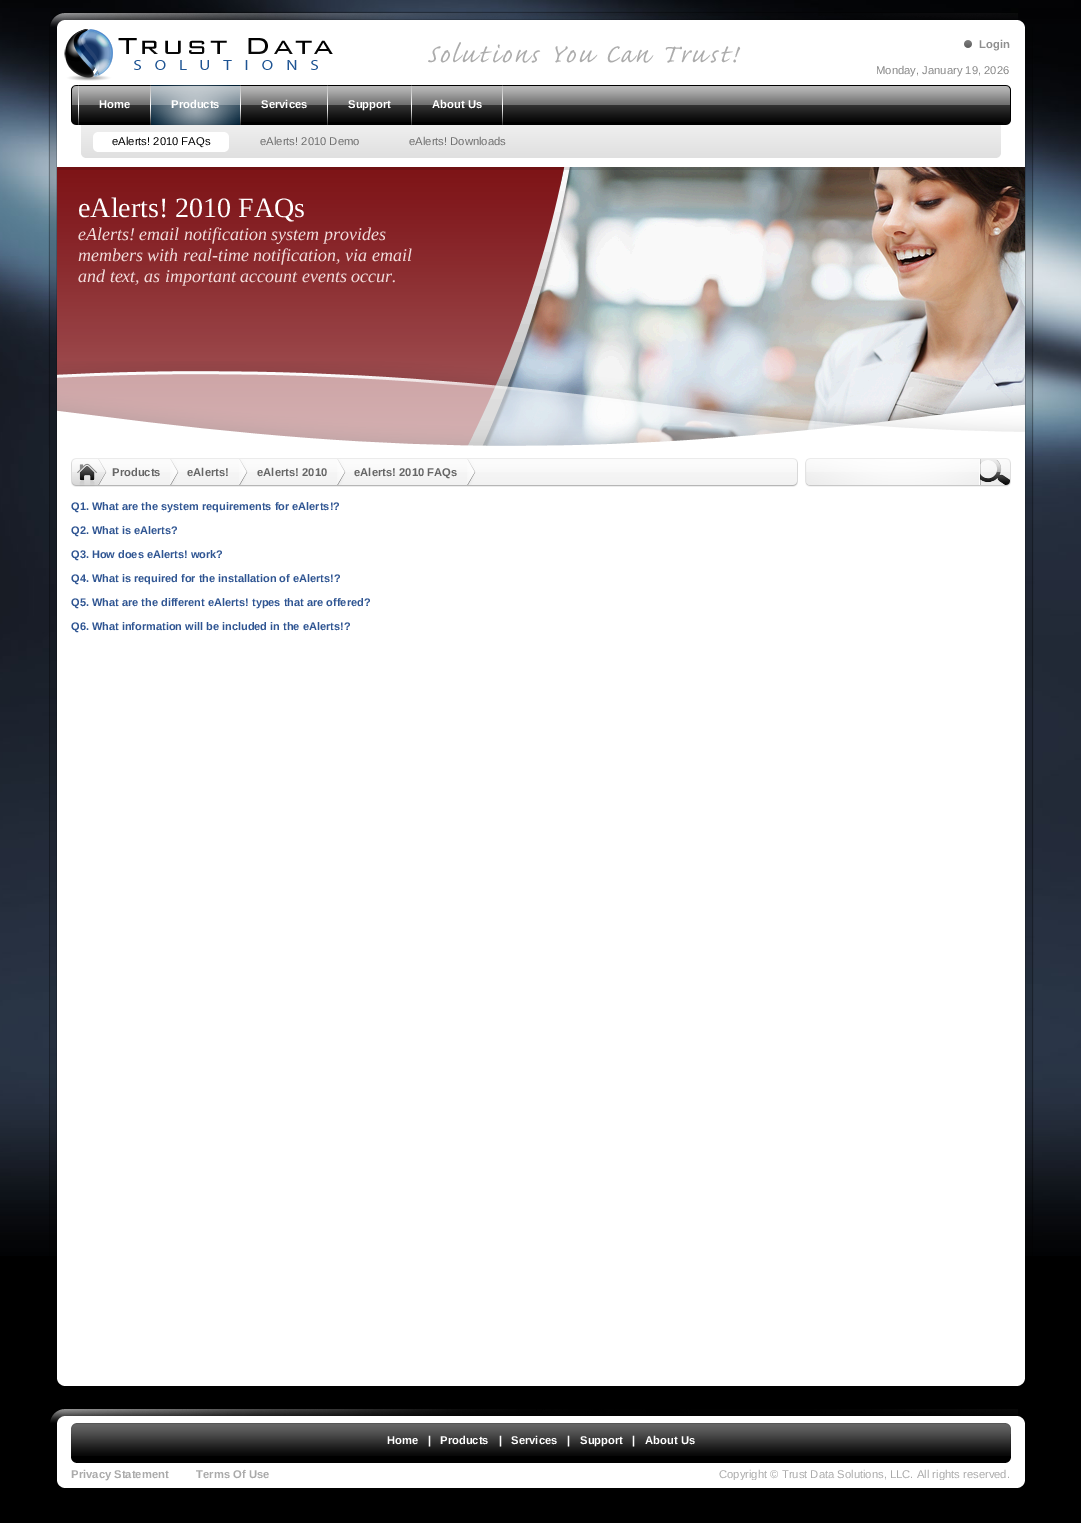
%!PS
<< /PageSize [1081 1523] /PageUsesTransparency true >> setpagedevice
/rgb { 3 { 255 div 3 1 roll } repeat setrgbcolor } def
/font { [ exch dup neg 0 0 3 -1 roll 0 0 ] selectfont } def
/text { moveto show } def
/alpha { dup .setfillconstantalpha .setstrokeconstantalpha } def
/picture { 5 dict begin { /h /w /y /x /name } { exch def } forall
  gsave x y translate w h scale
  w h 8 [w 0 0 h 0 0] name (r) file false 3 colorimage grestore end } def
0 .pushpdf14devicefilter
0 1523 translate 1 -1 scale
4 setmiterlimit
0 0 0 rgb
0 0 1081 1523 rectfill
(img_01.rgb) 0 0 1081 1256 picture
(img_02.rgb) 49 11 969 16 picture
(img_03.rgb) 1018 20 7 7 picture
(img_04.rgb) 49 27 969 58 picture
(img_05.rgb) 1018 27 15 58 picture
(img_06.rgb) 64 29 677 52 picture
(img_07.rgb) 964 40 8 8 picture
(img_08.rgb) 48 85 970 363 picture
(img_09.rgb) 1018 85 16 363 picture
71 85 940 40 rectfill
(img_10.rgb) 57 85 22 40 picture
(img_11.rgb) 150 86 853 36 picture
(img_12.rgb) 79 86 71 36 picture
(img_13.rgb) 150 85 1 40 picture
0 32 54 rgb
151 85 89 40 rectfill
(img_14.rgb) 151 85 89 40 picture
(img_13.rgb) 240 85 1 40 picture
0 0 0 rgb
241 86 86 36 rectfill
(img_15.rgb) 241 86 86 36 picture
(img_13.rgb) 327 85 1 40 picture
328 86 83 36 rectfill
(img_16.rgb) 328 86 83 36 picture
(img_13.rgb) 411 85 1 40 picture
412 86 90 36 rectfill
(img_17.rgb) 412 86 90 36 picture
(img_13.rgb) 502 85 1 40 picture
(img_18.rgb) 1003 85 22 40 picture
(img_19.rgb) 57 125 28 33 picture
(img_20.rgb) 85 125 912 33 picture
255 255 255 rgb
97 132 128 20 rectfill
(img_21.rgb) 93 132 4 20 picture
(img_22.rgb) 225 132 4 20 picture
(img_23.rgb) 997 125 28 33 picture
119 7 11 rgb
57 167 508 279 rectfill
(img_24.rgb) 57 167 508 279 picture
(img_25.rgb) 467 167 558 279 picture
0.11 alpha
0 0 0 rgb
57 167 968 3 rectfill
1 alpha
(img_26.rgb) 57 361 968 86 picture
(img_27.rgb) 49 448 969 3 picture
(img_28.rgb) 1018 448 16 3 picture
(img_29.rgb) 49 451 969 925 picture
(img_30.rgb) 1018 451 16 925 picture
(img_31.rgb) 71 458 5 29 picture
(img_32.rgb) 108 458 685 29 picture
79 466 16 15 rectfill
(img_33.rgb) 76 452 32 41 picture
(img_34.rgb) 170 459 9 26 picture
(img_34.rgb) 239 459 9 26 picture
(img_34.rgb) 337 459 9 26 picture
(img_34.rgb) 467 459 9 26 picture
(img_35.rgb) 793 458 5 29 picture
980 459 30 26 rectfill
(img_36.rgb) 805 452 213 41 picture
255 255 255 rgb
57 1376 968 3 rectfill
(img_37.rgb) 57 1379 961 7 picture
(img_38.rgb) 1018 1379 7 7 picture
(img_39.rgb) 50 1409 968 14 picture
(img_40.rgb) 1018 1416 7 7 picture
57 1423 968 58 rectfill
0 0 0 rgb
71 1423 940 40 rectfill
(img_41.rgb) 71 1423 940 33 picture
(img_42.rgb) 71 1423 935 5 picture
(img_43.rgb) 1006 1423 5 5 picture
0.17 alpha
36 36 36 rgb
71 1434 1 24 rectfill
0.15 alpha
0 0 0 rgb
1010 1434 1 15 rectfill
1 alpha
(img_44.rgb) 71 1458 5 5 picture
(img_45.rgb) 1006 1458 5 5 picture
(img_37.rgb) 57 1481 961 7 picture
(img_38.rgb) 1018 1481 7 7 picture
/LiberationSans-Bold 11.25 font
143 143 143 rgb
(Login) 979 48 text
/LiberationSans-Regular 11.25 font
135 135 135 rgb
(Monday, January 19, 2026) 876 74 text
/LiberationSans-Bold 11.25 font
255 255 255 rgb
(Home) 99 108 text
(Products) 171 108 text
(Services) 261 108 text
(Support) 348 108 text
(About Us) 432 108 text
/LiberationSans-Regular 11.25 font
0 0 0 rgb
(eAlerts! 2010 FAQs) 112 145 text
110 110 110 rgb
(eAlerts! 2010 Demo) 260 145 text
(eAlerts! Downloads) 409 145 text
/LiberationSerif-Regular 28 font
255 255 255 rgb
(eAlerts! 2010 FAQs) 78 217 text
/LiberationSerif-Italic 18 font
242 220 219 rgb
(eAlerts! email notification system provides) 78 240 text
(members with real-time notification, via email) 78 261 text
(and text, as important account events occur.) 78 282 text
/LiberationSans-Bold 11.25 font
102 102 102 rgb
(Products) 112 476 text
(eAlerts!) 187 476 text
(eAlerts! 2010) 257 476 text
(eAlerts! 2010 FAQs) 354 476 text
/LiberationSans-Bold 11 font
47 85 146 rgb
(Q1. What are the system requirements for eAlerts!?) 71 510 text
(Q2. What is eAlerts?) 71 534 text
(Q3. How does eAlerts! work?) 71 558 text
(Q4. What is required for the installation of eAlerts!?) 71 582 text
(Q5. What are the different eAlerts! types that are offered?) 71 606 text
(Q6. What information will be included in the eAlerts!?) 71 630 text
/LiberationSans-Bold 11.25 font
255 255 255 rgb
(Home) 387 1444 text
(|) 428 1444 text
(Products) 440 1444 text
(|) 499 1444 text
(Services) 511 1444 text
(|) 567 1444 text
(Support) 580 1444 text
(|) 632 1444 text
(About Us) 645 1444 text
170 170 170 rgb
(Privacy Statement) 71 1478 text
(Terms Of Use) 196 1478 text
gsave
57 1423 968 57 rectclip
/LiberationSans-Regular 11.25 font
(Copyright © Trust Data Solutions, LLC. All rights reserved.) 719 1478 text
grestore
.poppdf14devicefilter showpage
